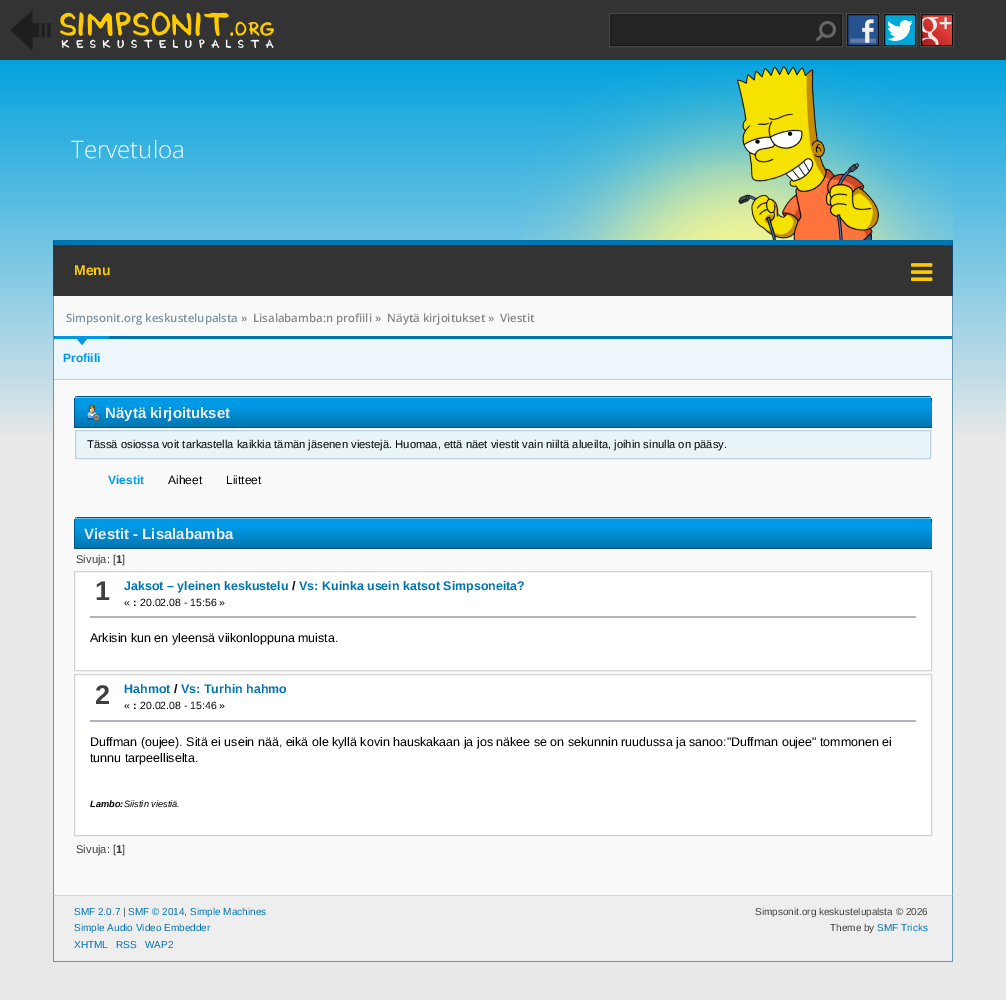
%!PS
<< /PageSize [1006 1000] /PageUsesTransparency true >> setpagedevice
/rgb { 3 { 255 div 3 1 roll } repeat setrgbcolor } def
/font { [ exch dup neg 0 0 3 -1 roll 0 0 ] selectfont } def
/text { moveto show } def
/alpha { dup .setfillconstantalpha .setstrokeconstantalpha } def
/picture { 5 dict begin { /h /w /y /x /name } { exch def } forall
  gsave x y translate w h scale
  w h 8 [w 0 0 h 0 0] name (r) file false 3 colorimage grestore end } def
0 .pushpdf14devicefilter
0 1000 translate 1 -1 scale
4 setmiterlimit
232 232 232 rgb
0 0 1006 1000 rectfill
(img_01.rgb) 0 60 1006 374 picture
51 51 51 rgb
0 0 1006 60 rectfill
(img_02.rgb) 10 10 41 40 picture
(img_03.rgb) 60 12 214 37 picture
36 36 36 rgb
610.5 14.5 moveto 231 0 rlineto 0 31 rlineto -231 0 rlineto closepath gsave fill grestore
18 18 18 rgb
stroke
71 71 71 rgb
609.5 13.5 233 33 rectstroke
(img_04.rgb) 816 21 20 20 picture
(img_05.rgb) 848 15 30 30 picture
0 0 0 rgb
847.5 14.5 31 31 rectstroke
71 71 71 rgb
846.5 13.5 33 33 rectstroke
(img_06.rgb) 885 15 30 30 picture
0 0 0 rgb
884.5 14.5 31 31 rectstroke
71 71 71 rgb
883.5 13.5 33 33 rectstroke
(img_07.rgb) 922 15 30 30 picture
0 0 0 rgb
921.5 14.5 31 31 rectstroke
71 71 71 rgb
920.5 13.5 33 33 rectstroke
(img_08.rgb) 521 66 432 174 picture
51 51 51 rgb
53 240 900 56 rectfill
0 116 174 rgb
53 240 moveto 900 0 rlineto -1 5 rlineto -898 0 rlineto closepath fill
0.6 alpha
0 85 128 rgb
953 240 moveto 0 56 rlineto -1 -1 rlineto 0 -50 rlineto closepath fill
53 296 moveto 0 -56 rlineto 1 5 rlineto 0 50 rlineto closepath fill
1 alpha
(img_09.rgb) 911 263 22 18 picture
249 249 249 rgb
54 296 898 40 rectfill
100 151 176 rgb
952 296 1 599 rectfill
53 296 1 599 rectfill
249 249 249 rgb
54 380 898 515 rectfill
237 246 250 rgb
54 339 898 40 rectfill
0 116 174 rgb
54 336 898 3 rectfill
190 214 226 rgb
54 379 898 1 rectfill
0 153 229 rgb
55 336 54 3 rectfill
77 339 moveto 10 0 rlineto -5 6 rlineto closepath fill
gsave 77 396 moveto 852 0 rlineto 1 0 2 1 2 3 rcurveto 0 28 rlineto -856 0 rlineto 0 -28 rlineto 0 -2 1 -3 2 -3 rcurveto closepath clip newpath
<< /ShadingType 2 /ColorSpace /DeviceRGB /Coords [503 396 503 427] /Extend [true true] /Function << /FunctionType 3 /Domain [0 1] /Functions [<< /FunctionType 2 /Domain [0 1] /C0 [0 0.6 0.898] /C1 [0 0.6 0.898] /N 1 >> << /FunctionType 2 /Domain [0 1] /C0 [0 0.6 0.898] /C1 [0 0.455 0.678] /N 1 >>] /Bounds [0.3] /Encode [0 1 0 1] >> >> shfill grestore
0.5 alpha
255 255 255 rgb
77 397 moveto 852 0 rlineto 1 0 2 1 2 3 rcurveto 0 -1 0 -4 -2 -4 rcurveto -852 0 rlineto -1 0 -2 1 -2 2 rcurveto 0 2 rlineto 0 -2 1 -3 2 -3 rcurveto closepath fill
1 alpha
0 85 128 rgb
931 398 1 30 rectfill
74 427 858 1 rectfill
74 398 1 30 rectfill
gsave 75 399 moveto 0 28 rlineto 856 0 rlineto 0 -5 1 -27 -1 -30 rcurveto -854 0 rlineto closepath clip newpath
<< /ShadingType 2 /ColorSpace /DeviceRGB /Coords [503 397 503 428] /Extend [true true] /Function << /FunctionType 3 /Domain [0 1] /Functions [<< /FunctionType 2 /Domain [0 1] /C0 [0 0.6 0.898] /C1 [0 0.6 0.898] /N 1 >> << /FunctionType 2 /Domain [0 1] /C0 [0 0.6 0.898] /C1 [0 0.455 0.678] /N 1 >>] /Bounds [0.3] /Encode [0 1 0 1] >> >> shfill grestore
0.4 alpha
255 255 255 rgb
75 398 moveto 1 -1 rlineto 854 0 rlineto 1 1 rlineto closepath fill
1 alpha
0 85 128 rgb
77 396 moveto 852 0 rlineto 1 1 rlineto -854 0 rlineto closepath fill
(img_10.rgb) 87 405 13 16 picture
232 244 248 rgb
75.5 430.5 moveto 855 0 rlineto 0 28 rlineto -855 0 rlineto closepath gsave fill grestore
186 212 224 rgb
stroke
gsave 77 517 moveto 852 0 rlineto 1 0 2 1 2 3 rcurveto 0 28 rlineto -856 0 rlineto 0 -28 rlineto 0 -2 1 -3 2 -3 rcurveto closepath clip newpath
<< /ShadingType 2 /ColorSpace /DeviceRGB /Coords [503 517 503 548] /Extend [true true] /Function << /FunctionType 3 /Domain [0 1] /Functions [<< /FunctionType 2 /Domain [0 1] /C0 [0 0.6 0.898] /C1 [0 0.6 0.898] /N 1 >> << /FunctionType 2 /Domain [0 1] /C0 [0 0.6 0.898] /C1 [0 0.455 0.678] /N 1 >>] /Bounds [0.3] /Encode [0 1 0 1] >> >> shfill grestore
0.5 alpha
255 255 255 rgb
77 518 moveto 852 0 rlineto 1 0 2 1 2 3 rcurveto 0 -1 0 -4 -2 -4 rcurveto -852 0 rlineto -1 0 -2 1 -2 2 rcurveto 0 2 rlineto 0 -2 1 -3 2 -3 rcurveto closepath fill
1 alpha
0 85 128 rgb
931 519 1 30 rectfill
74 548 858 1 rectfill
74 519 1 30 rectfill
gsave 75 520 moveto 0 28 rlineto 856 0 rlineto 0 -5 1 -27 -1 -30 rcurveto -854 0 rlineto closepath clip newpath
<< /ShadingType 2 /ColorSpace /DeviceRGB /Coords [503 518 503 549] /Extend [true true] /Function << /FunctionType 3 /Domain [0 1] /Functions [<< /FunctionType 2 /Domain [0 1] /C0 [0 0.6 0.898] /C1 [0 0.6 0.898] /N 1 >> << /FunctionType 2 /Domain [0 1] /C0 [0 0.6 0.898] /C1 [0 0.455 0.678] /N 1 >>] /Bounds [0.3] /Encode [0 1 0 1] >> >> shfill grestore
0.4 alpha
255 255 255 rgb
75 519 moveto 1 -1 rlineto 854 0 rlineto 1 1 rlineto closepath fill
1 alpha
0 85 128 rgb
77 517 moveto 852 0 rlineto 1 1 rlineto -854 0 rlineto closepath fill
255 255 255 rgb
74.5 571.5 moveto 857 0 rlineto 0 99 rlineto -857 0 rlineto closepath gsave fill grestore
212 212 212 rgb
stroke
179 179 191 rgb
90 616 826 2 rectfill
255 255 255 rgb
74.5 674.5 moveto 857 0 rlineto 0 161 rlineto -857 0 rlineto closepath gsave fill grestore
212 212 212 rgb
stroke
179 179 191 rgb
90 720 826 2 rectfill
238 238 238 rgb
53 895 900 66 rectfill
214 214 214 rgb
53 895 moveto 900 0 rlineto -1 1 rlineto -898 0 rlineto closepath fill
97 151 179 rgb
953 895 moveto 0 67 rlineto -1 -1 rlineto 0 -65 rlineto closepath fill
53 961 900 1 rectfill
53 962 moveto 0 -67 rlineto 1 1 rlineto 0 65 rlineto closepath fill
/OpenSans-Light 24 font
255 255 255 rgb
(Tervetuloa) 71 158 text
/LiberationSans-Bold 14 font
254 203 0 rgb
(Menu) 74 275 text
/OpenSans-SemiBold 11.4 font
123 148 164 rgb
(Simpsonit.org keskustelupalsta) 66 322 text
136 136 136 rgb
(») 241 322 text
(Lisalabamba:n profiili ») 253 322 text
(Näytä kirjoitukset ») 387 322 text
(Viestit) 500 322 text
/LiberationSans-Bold 12 font
0 153 229 rgb
(Profiili) 63 362 text
/LiberationSans-Bold 15 font
237 237 237 rgb
(Näytä kirjoitukset) 105 418 text
/LiberationSans-Regular 11.23 font
0 0 0 rgb
(Tässä osiossa voit tarkastella kaikkia tämän jäsenen viestejä. Huomaa, että näet viestit vain niiltä alueilta, joihin sinulla on pääsy.) 87 448 text
/LiberationSans-Bold 12 font
0 153 229 rgb
(Viestit) 108 484 text
/LiberationSans-Regular 12 font
0 0 0 rgb
(Aiheet) 168 484 text
(Liitteet) 226 484 text
/LiberationSans-Bold 15 font
237 237 237 rgb
(Viestit - Lisalabamba) 84 539 text
/LiberationSans-Regular 11.23 font
63 63 63 rgb
(Sivuja: [) 76 563 text
/LiberationSans-Bold 11.23 font
(1) 116 563 text
/LiberationSans-Regular 11.23 font
(]) 122 563 text
/LiberationSans-Bold 27 font
(1) 95 600 text
/LiberationSans-Bold 12.48 font
0 116 174 rgb
(Jaksot – yleinen keskustelu) 124 590 text
0 0 0 rgb
(/) 292 590 text
0 116 174 rgb
(Vs: Kuinka usein katsot Simpsoneita?) 299 590 text
/LiberationSans-Regular 10.5 font
0 0 0 rgb
(«) 124 606 text
/LiberationSans-Bold 10.5 font
(:) 133 606 text
/LiberationSans-Regular 10.5 font
(20.02.08 - 15:56 ») 140 606 text
/LiberationSans-Regular 12.48 font
(Arkisin kun en yleensä viikonloppuna muista.) 90 642 text
/LiberationSans-Bold 27 font
63 63 63 rgb
(2) 95 704 text
/LiberationSans-Bold 12.48 font
0 116 174 rgb
(Hahmot) 124 693 text
0 0 0 rgb
(/) 174 693 text
0 116 174 rgb
(Vs: Turhin hahmo) 181 693 text
/LiberationSans-Regular 10.5 font
0 0 0 rgb
(«) 124 709 text
/LiberationSans-Bold 10.5 font
(:) 133 709 text
/LiberationSans-Regular 10.5 font
(20.02.08 - 15:46 ») 140 709 text
/LiberationSans-Regular 12.48 font
(Duffman \(oujee\). Sitä ei usein nää, eikä ole kyllä kovin hauskakaan ja jos näkee se on sekunnin ruudussa ja sanoo:"Duffman oujee" tommonen ei) 90 746 text
(tunnu tarpeelliselta.) 90 762 text
/LiberationSans-BoldItalic 9.25 font
(Lambo:) 90 807 text
/LiberationSans-Italic 9.25 font
(Siistin viestiä.) 124 807 text
/LiberationSans-Regular 11.23 font
63 63 63 rgb
(Sivuja: [) 76 853 text
/LiberationSans-Bold 11.23 font
(1) 116 853 text
/LiberationSans-Regular 11.23 font
(]) 122 853 text
/LiberationSans-Regular 10 font
0 116 174 rgb
(SMF 2.0.7) 74 915 text
63 63 63 rgb
(|) 123 915 text
0 116 174 rgb
(SMF © 2014) 128 915 text
63 63 63 rgb
(,) 184 915 text
0 116 174 rgb
(Simple Machines) 190 915 text
(Simple Audio Video Embedder) 74 931 text
(XHTML) 74 948 text
(RSS) 116 948 text
(WAP2) 145 948 text
63 63 63 rgb
(Simpsonit.org keskustelupalsta © 2026) 755 915 text
(Theme by) 830 931 text
0 116 174 rgb
(SMF Tricks) 877 931 text
.poppdf14devicefilter showpage
